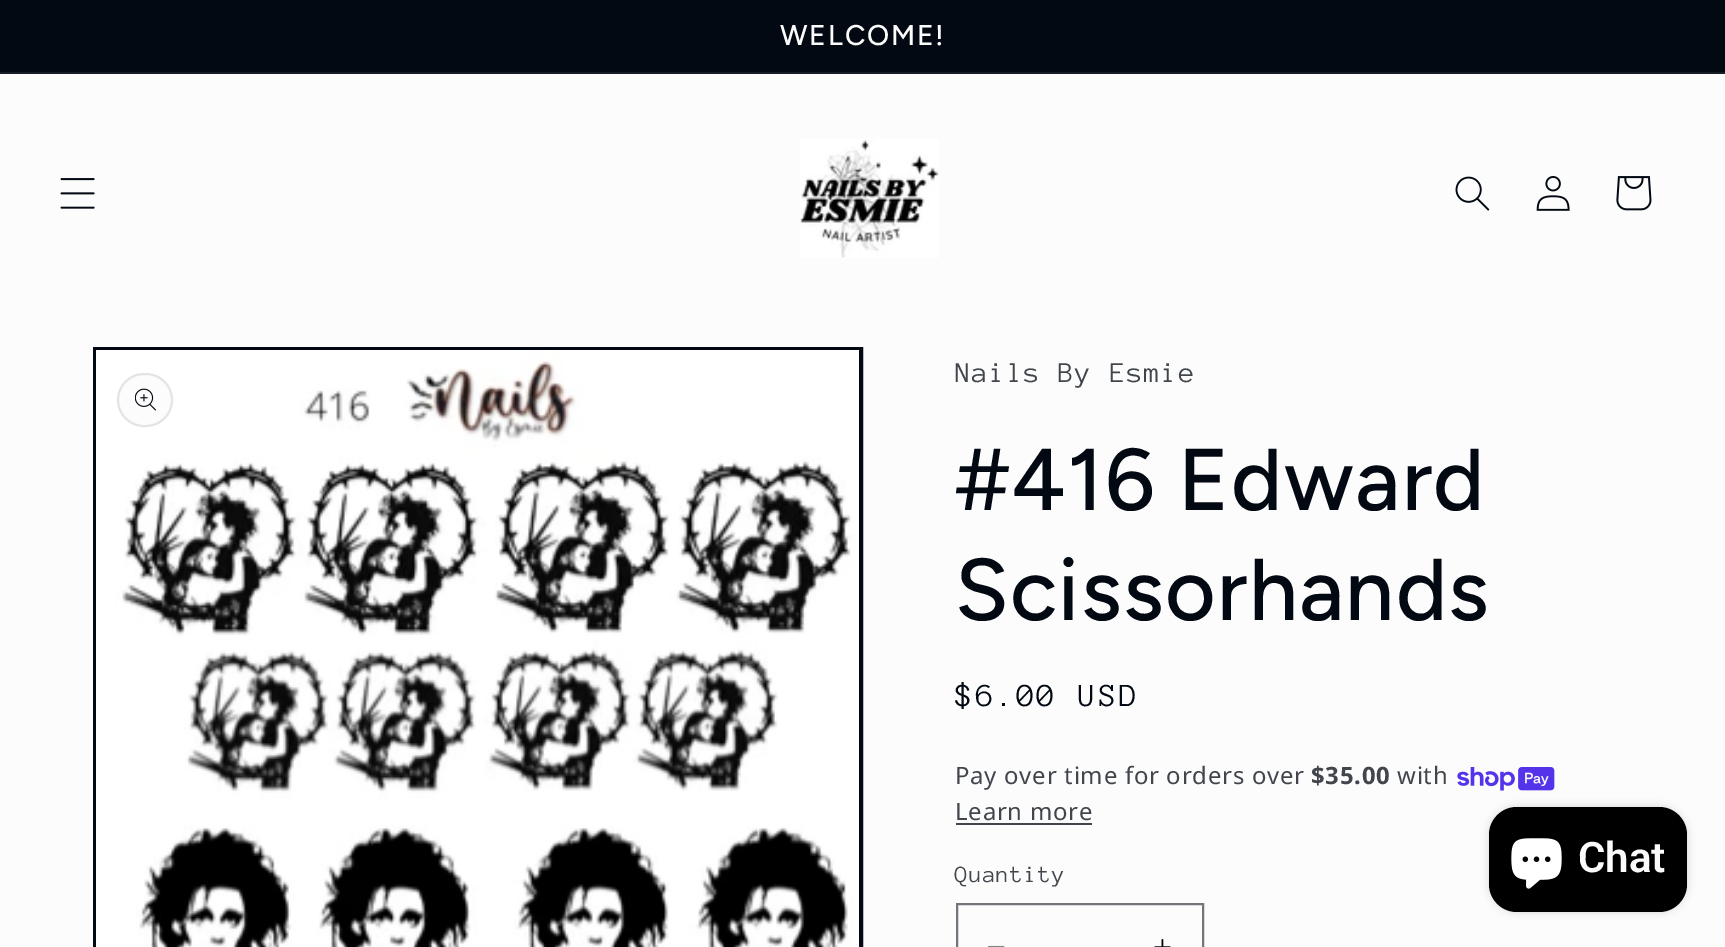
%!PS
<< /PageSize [1725 947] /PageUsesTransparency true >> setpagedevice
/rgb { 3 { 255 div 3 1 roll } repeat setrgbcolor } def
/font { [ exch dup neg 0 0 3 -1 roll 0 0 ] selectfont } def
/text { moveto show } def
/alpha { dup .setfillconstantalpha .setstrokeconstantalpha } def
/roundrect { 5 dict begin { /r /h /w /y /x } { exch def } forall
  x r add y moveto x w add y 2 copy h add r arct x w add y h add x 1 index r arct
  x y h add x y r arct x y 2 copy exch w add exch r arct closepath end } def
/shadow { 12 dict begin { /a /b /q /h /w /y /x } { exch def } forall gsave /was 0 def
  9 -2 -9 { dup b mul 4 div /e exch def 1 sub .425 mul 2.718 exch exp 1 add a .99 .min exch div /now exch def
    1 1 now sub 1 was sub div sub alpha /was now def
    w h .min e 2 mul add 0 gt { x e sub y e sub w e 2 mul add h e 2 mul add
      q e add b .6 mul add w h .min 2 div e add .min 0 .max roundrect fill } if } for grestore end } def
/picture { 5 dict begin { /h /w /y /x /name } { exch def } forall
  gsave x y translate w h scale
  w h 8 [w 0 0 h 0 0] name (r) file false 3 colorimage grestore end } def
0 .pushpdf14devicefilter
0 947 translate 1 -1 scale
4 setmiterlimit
252 252 252 rgb
0 0 1725 947 rectfill
2 9 18 rgb
0 0 1725 72 rectfill
22 28 37 rgb
0 72 1725 2 rectfill
(img_01.rgb) 60 178 35 31 picture
(img_02.rgb) 800 139 139 119 picture
(img_03.rgb) 1455 176 35 35 picture
(img_04.rgb) 1536 176 34 35 picture
(img_05.rgb) 1616 176 36 35 picture
2 9 18 rgb
4 setlinewidth
95 349 766 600 rectstroke
(img_06.rgb) 96 350 763 597 picture
252 252 252 rgb
118 374 54 52 26 roundrect gsave fill grestore
227 228 229 rgb
2 setlinewidth
stroke
(img_07.rgb) 135 388 21 23 picture
(img_08.rgb) 1457 767 98 24 picture
65 70 77 rgb
956 823 136 2 rectfill
(img_09.rgb) 988 945 17 2 picture
(img_10.rgb) 1154 939 17 8 picture
114 118 123 rgb
957 904 246 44 rectstroke
0 0 0 rgb
1489 807 198 105 28 4.5 0.15 shadow
1489 807 198 105 28 roundrect fill
(img_11.rgb) 1511 838 51 51 picture
/Figtree-Medium 28.5 font
252 252 252 rgb
780 45 moveto 1.75 0 (WELCOME!) ashow
/AnonymousPro-Regular 29.5 font
65 70 77 rgb
955 382 moveto 1.1 0 (Nails By Esmie) ashow
/Figtree-Medium 87.5 font
2 9 18 rgb
955 510 moveto 1.25 0 (#416 Edward) ashow
955 620 moveto 1.25 0 (Scissorhands) ashow
/AnonymousPro-Regular 33 font
955 706 moveto 2.5 0 ($6.00 USD) ashow
/NotoSans-Regular 23.9 font
65 70 77 rgb
955 784 moveto 0.75 0 (Pay over time for orders over) ashow
/NotoSans-Bold 23.9 font
1311 784 moveto 0.75 0 ($35.00) ashow
/NotoSans-Regular 23.9 font
1397 784 moveto 0.75 0 (with) ashow
955 820 moveto 0.75 0 (Learn more) ashow
/AnonymousPro-Regular 23.9 font
955 882 moveto 0.75 0 (Quantity) ashow
/Roboto-SemiBold 42 font
252 252 252 rgb
(Chat) 1578 872 text
.poppdf14devicefilter showpage
